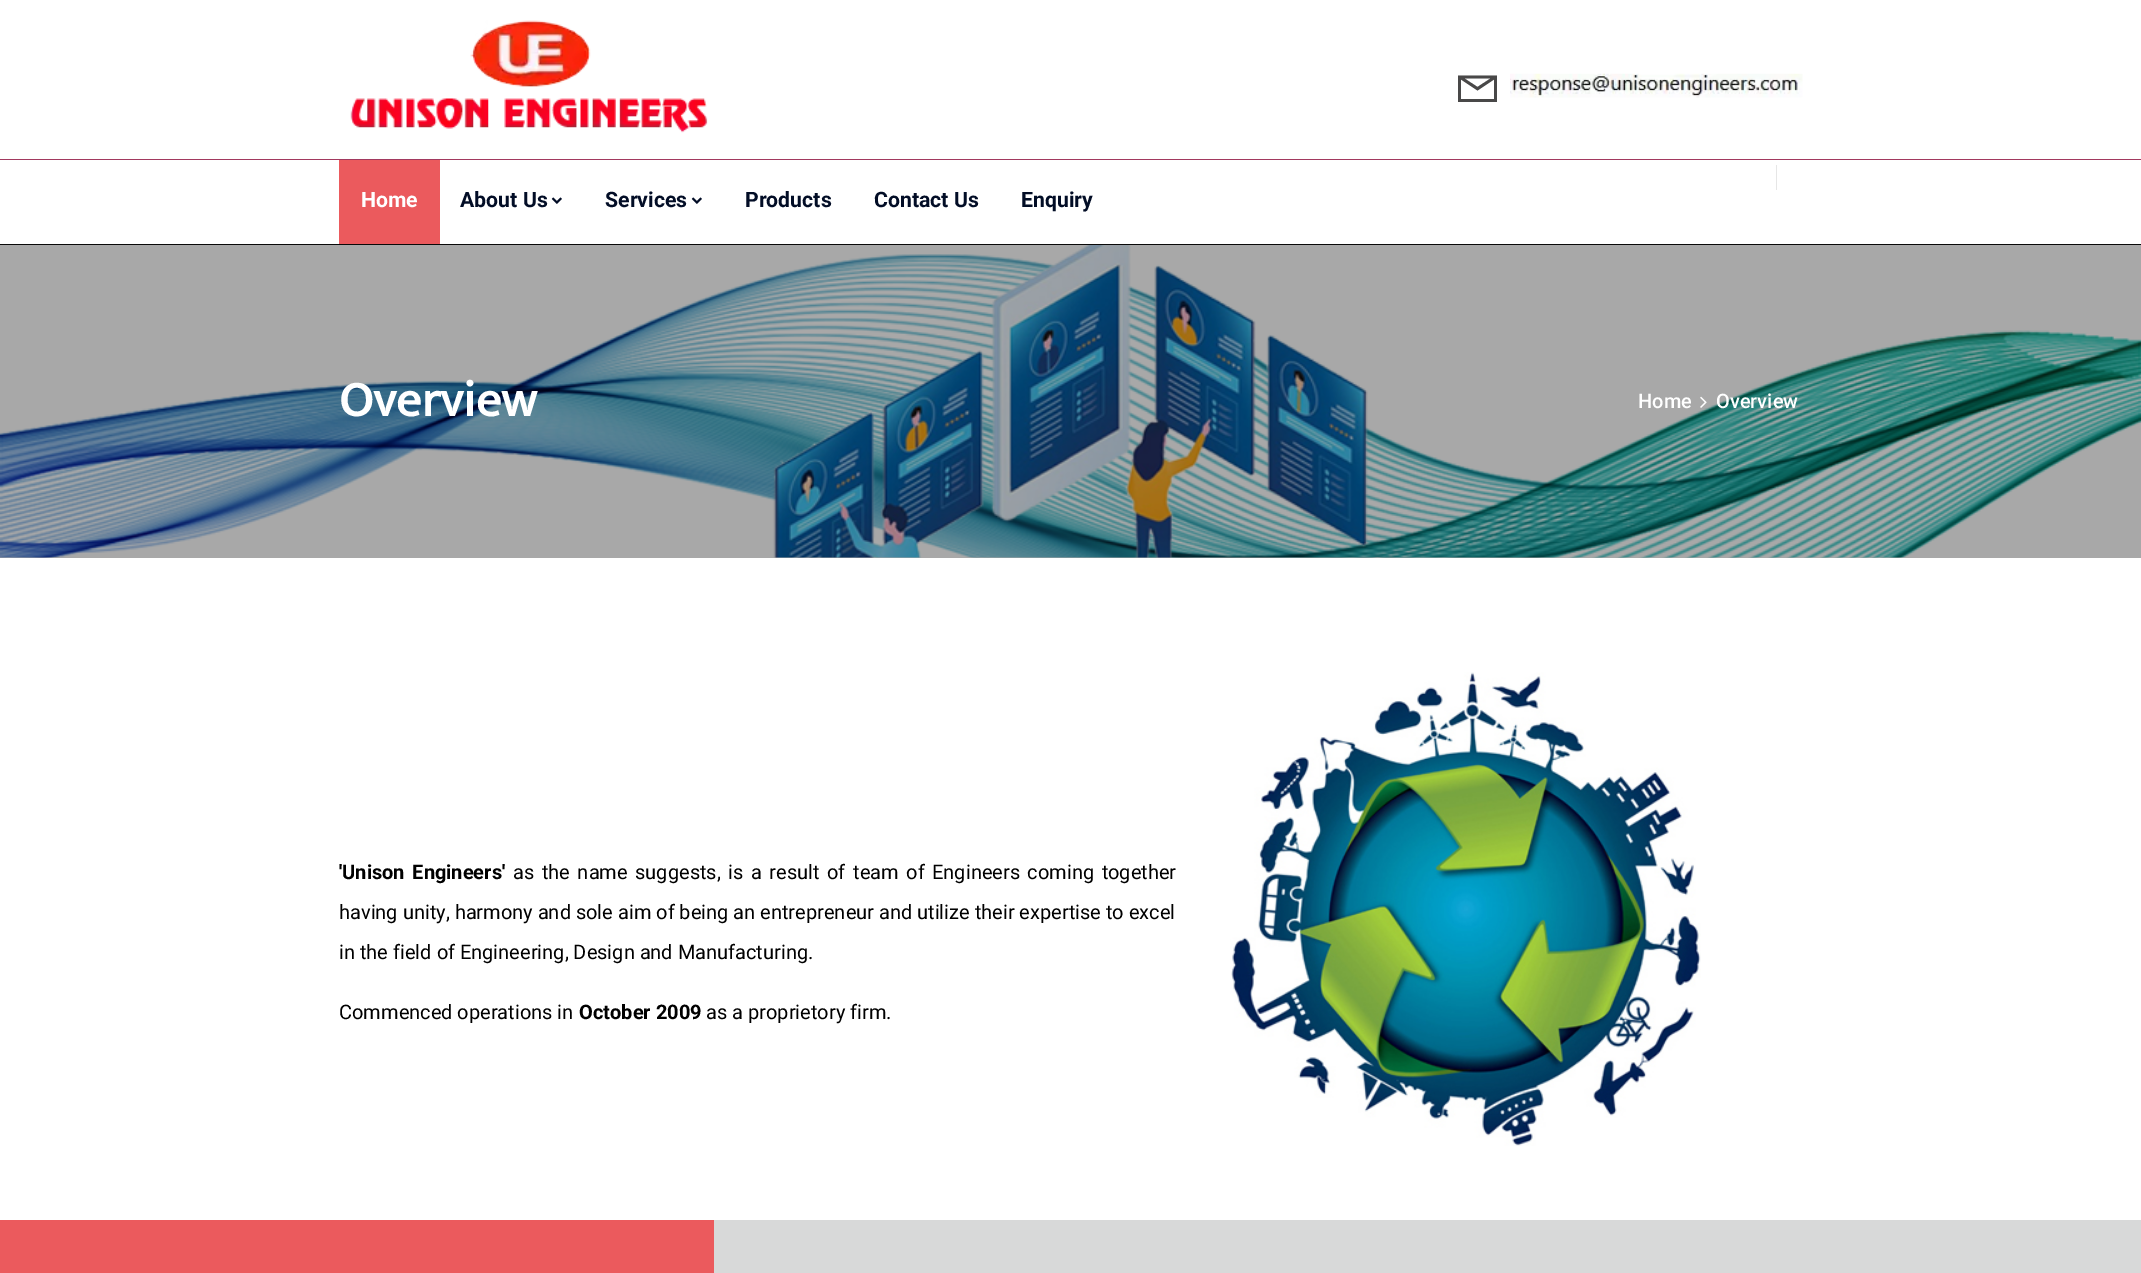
%!PS
<< /PageSize [2141 1273] >> setpagedevice
/rgb { 3 { 255 div 3 1 roll } repeat setrgbcolor } def
/font { [ exch dup neg 0 0 3 -1 roll 0 0 ] selectfont } def
/text { moveto show } def
/picture { 5 dict begin { /h /w /y /x /name } { exch def } forall
  gsave x y translate w h scale
  w h 8 [w 0 0 h 0 0] name (r) file false 3 colorimage grestore end } def
0 1273 translate 1 -1 scale
4 setmiterlimit
255 255 255 rgb
0 0 2141 1273 rectfill
162 57 95 rgb
0 159 2141 1 rectfill
(img_01.rgb) 350 20 358 113 picture
73 72 72 rgb
1458 75.5 moveto 39 0 rlineto 0 26.5 rlineto -39 0 rlineto closepath 1464.5 78.5 moveto 13 8.5 rlineto 13 -8.5 rlineto closepath 1461 79.5 moveto 0 19.5 rlineto 33 0 rlineto 0 -19.5 rlineto -16.5 11 rlineto closepath fill
(img_02.rgb) 1510 73 293 25 picture
9 9 9 rgb
0 244 2141 1 rectfill
230 230 230 rgb
1776 165 1 25 rectfill
235 90 93 rgb
339 160 101 84 rectfill
(img_03.rgb) 551 197 11 7 picture
(img_03.rgb) 691 197 11 7 picture
168 168 168 rgb
0 557 2141 1 rectfill
(img_04.rgb) 0 245 2141 313 picture
(img_05.rgb) 1700 396 7 12 picture
(img_06.rgb) 1230 672 471 474 picture
216 217 217 rgb
714 1220 1427 53 rectfill
235 90 93 rgb
0 1220 714 53 rectfill
/Roboto-Bold 21.25 font
255 255 255 rgb
(Home) 361 207 text
2 13 38 rgb
(About Us) 460 207 text
(Services) 605 207 text
(Products) 745 207 text
(Contact Us) 874 207 text
(Enquiry) 1021 207 text
/Mukta-Bold 50 font
255 255 255 rgb
(Overview) 339 416 text
/Roboto-Medium 20 font
(Home) 1638 408 text
(Overview) 1716 408 text
/Roboto-Bold 20 font
0 0 0 rgb
339 879 moveto 2.6 0 32 ('Unison Engineers') widthshow
/Roboto-Regular 20 font
513 879 moveto 2.6 0 32 (as the name suggests, is a result of team of Engineers coming together) widthshow
(having unity, harmony and sole aim of being an entrepreneur and utilize their expertise to excel) 339 919 text
(in the field of Engineering, Design and Manufacturing.) 339 959 text
(Commenced operations in) 339 1019 text
/Roboto-Bold 20 font
(October 2009) 579 1019 text
/Roboto-Regular 20 font
(as a proprietory firm.) 706 1019 text
showpage
